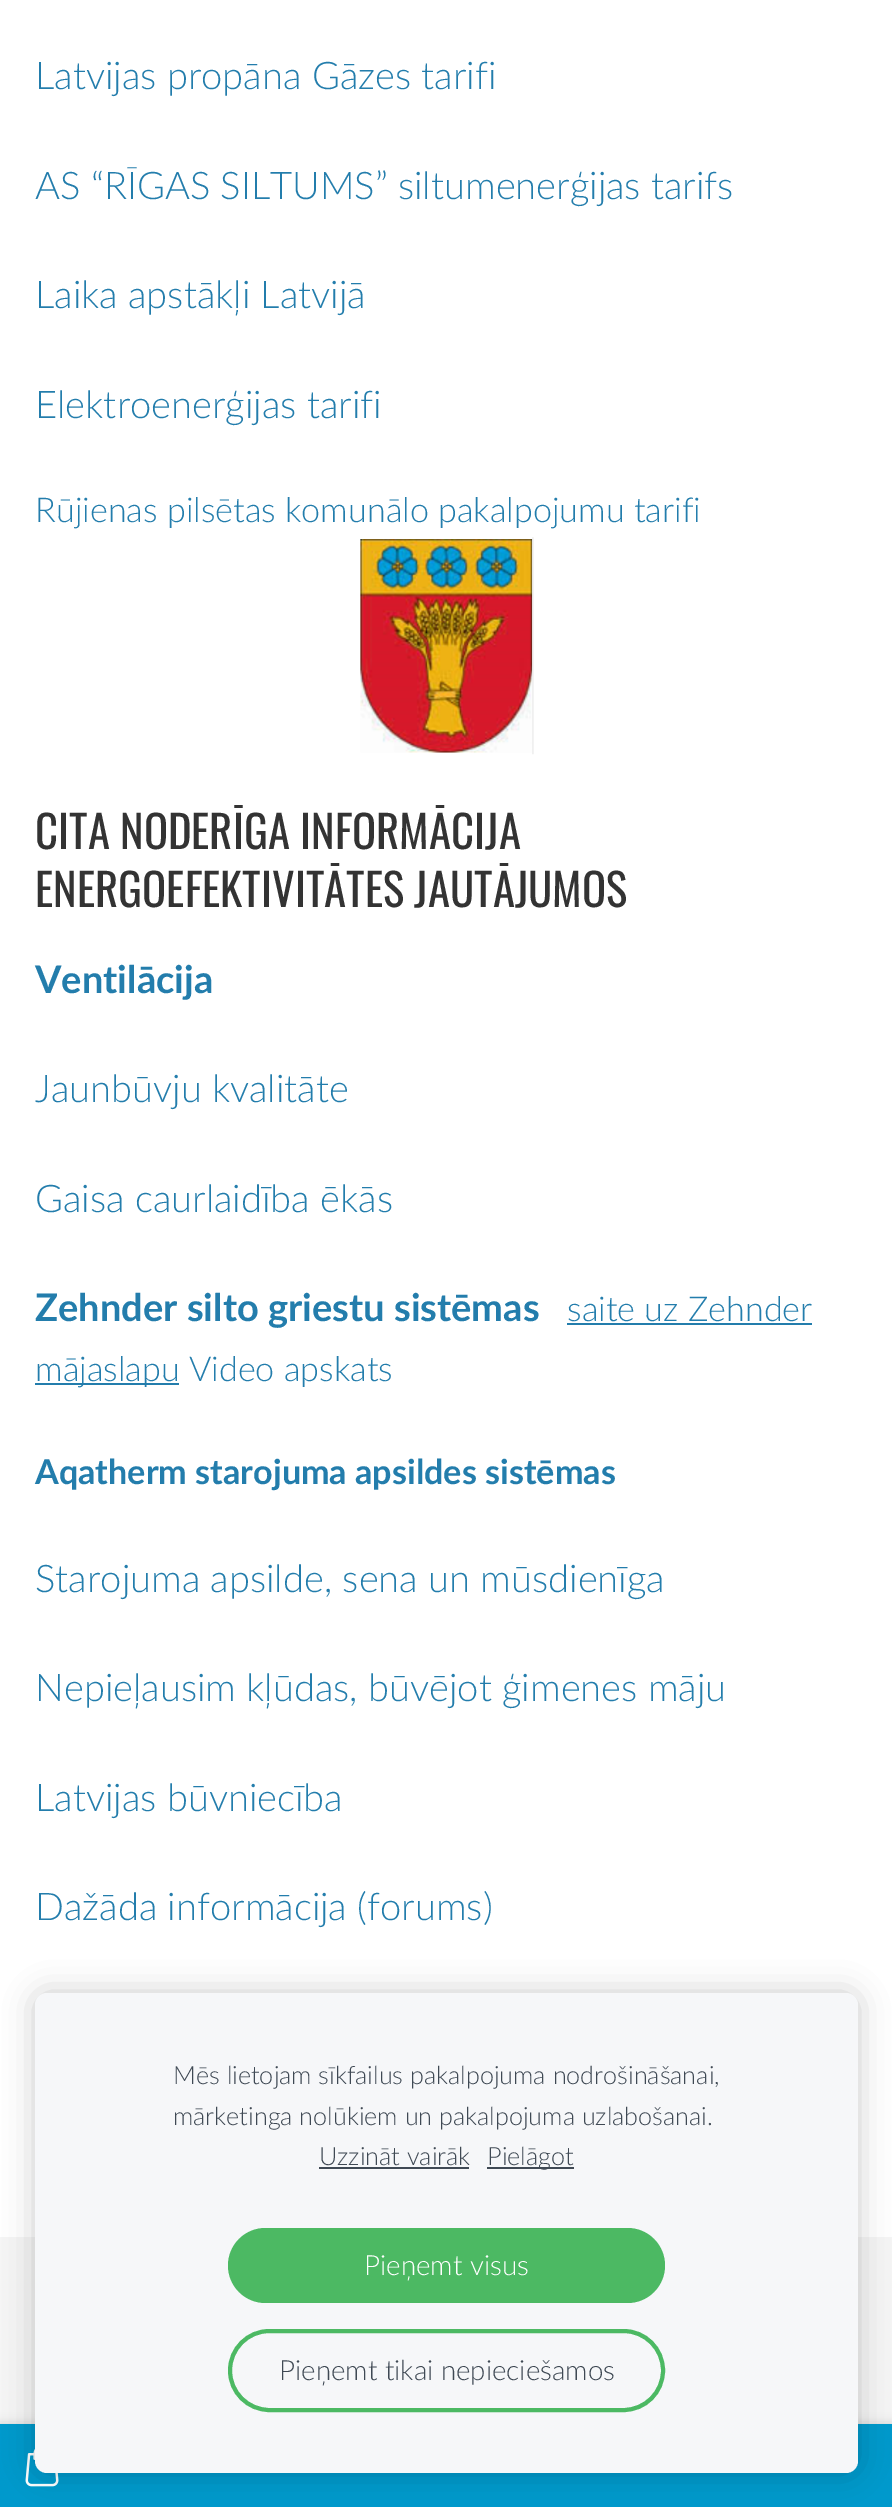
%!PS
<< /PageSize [892 2507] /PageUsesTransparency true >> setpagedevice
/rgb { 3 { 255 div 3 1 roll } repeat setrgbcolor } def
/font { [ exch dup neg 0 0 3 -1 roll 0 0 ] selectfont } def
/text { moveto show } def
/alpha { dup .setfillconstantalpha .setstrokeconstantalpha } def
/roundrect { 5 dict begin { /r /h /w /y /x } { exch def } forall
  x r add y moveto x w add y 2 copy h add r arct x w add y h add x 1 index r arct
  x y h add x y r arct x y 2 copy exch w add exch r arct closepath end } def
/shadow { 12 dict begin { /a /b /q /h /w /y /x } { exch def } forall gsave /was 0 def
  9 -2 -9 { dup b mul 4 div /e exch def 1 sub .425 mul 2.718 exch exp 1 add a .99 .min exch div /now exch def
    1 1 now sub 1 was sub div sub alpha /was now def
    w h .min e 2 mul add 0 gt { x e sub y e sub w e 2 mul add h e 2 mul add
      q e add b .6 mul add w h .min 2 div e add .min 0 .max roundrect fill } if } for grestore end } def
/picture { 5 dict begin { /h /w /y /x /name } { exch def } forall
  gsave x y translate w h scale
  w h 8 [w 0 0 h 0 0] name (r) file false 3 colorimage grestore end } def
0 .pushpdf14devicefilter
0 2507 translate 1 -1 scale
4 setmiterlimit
245 245 245 rgb
0 0 892 2507 rectfill
255 255 255 rgb
0 0 892 2237 rectfill
(img_01.rgb) 360 537 174 218 picture
35 125 172 rgb
567 1323 245 2 rectfill
35 1383 144 2 rectfill
0 0 0 rgb
-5 2422 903 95 0 4.5 0.1 shadow
0 153 204 rgb
0 2424 892 83 rectfill
(img_02.rgb) 25 2449 34 38 picture
0 0 0 rgb
35 1993 823 480 12 15 0.2 shadow
246 247 249 rgb
35 1993 823 480 12 roundrect fill
63 73 84 rgb
319 2167 150 2 rectfill
487 2167 87 2 rectfill
76 185 99 rgb
228 2228 437 75 37.5 roundrect fill
4 setlinewidth
230 2331 433 79 39.5 roundrect stroke
/Lato-Light 38.1 font
35 125 172 rgb
(Latvijas propāna Gāzes tarifi) 35 89 text
(AS “RĪGAS SILTUMS” siltumenerģijas tarifs) 35 199 text
(Laika apstākļi Latvijā) 35 308 text
(Elektroenerģijas tarifi) 35 418 text
/Lato-Light 34.2 font
(Rūjienas pilsētas komunālo pakalpojumu tarifi) 35 522 text
/Oswald-Regular 44.75 font
51 51 51 rgb
(CITA NODERĪGA INFORMĀCIJA) 35 849 text
(ENERGOEFEKTIVITĀTES JAUTĀJUMOS) 35 907 text
/Lato-Bold 38.1 font
35 125 172 rgb
(Ventilācija) 35 993 text
/Lato-Light 38.1 font
(Jaunbūvju kvalitāte) 35 1102 text
(Gaisa caurlaidība ēkās) 35 1212 text
/Lato-Bold 38.1 font
(Zehnder silto griestu sistēmas) 35 1321 text
/Lato-Light 34.2 font
(saite uz Zehnder) 567 1321 text
(mājaslapu Video apskats) 35 1381 text
/Lato-Bold 34.2 font
(Aqatherm starojuma apsildes sistēmas) 35 1484 text
/Lato-Light 38.1 font
(Starojuma apsilde, sena un mūsdienīga) 35 1592 text
(Nepieļausim kļūdas, būvējot ģimenes māju) 35 1701 text
(Latvijas būvniecība) 35 1811 text
(Dažāda informācija \(forums\)) 35 1920 text
/Lato-Light 25.2 font
63 73 84 rgb
(Mēs lietojam sīkfailus pakalpojuma nodrošināšanai,) 173 2084 text
(mārketinga nolūkiem un pakalpojuma uzlabošanai.) 173 2125 text
(Uzzināt vairāk) 319 2165 text
(Pielāgot) 487 2165 text
/Lato-Light 27.75 font
255 255 255 rgb
(Pieņemt visus) 364 2275 text
63 73 84 rgb
(Pieņemt tikai nepieciešamos) 279 2380 text
.poppdf14devicefilter showpage
